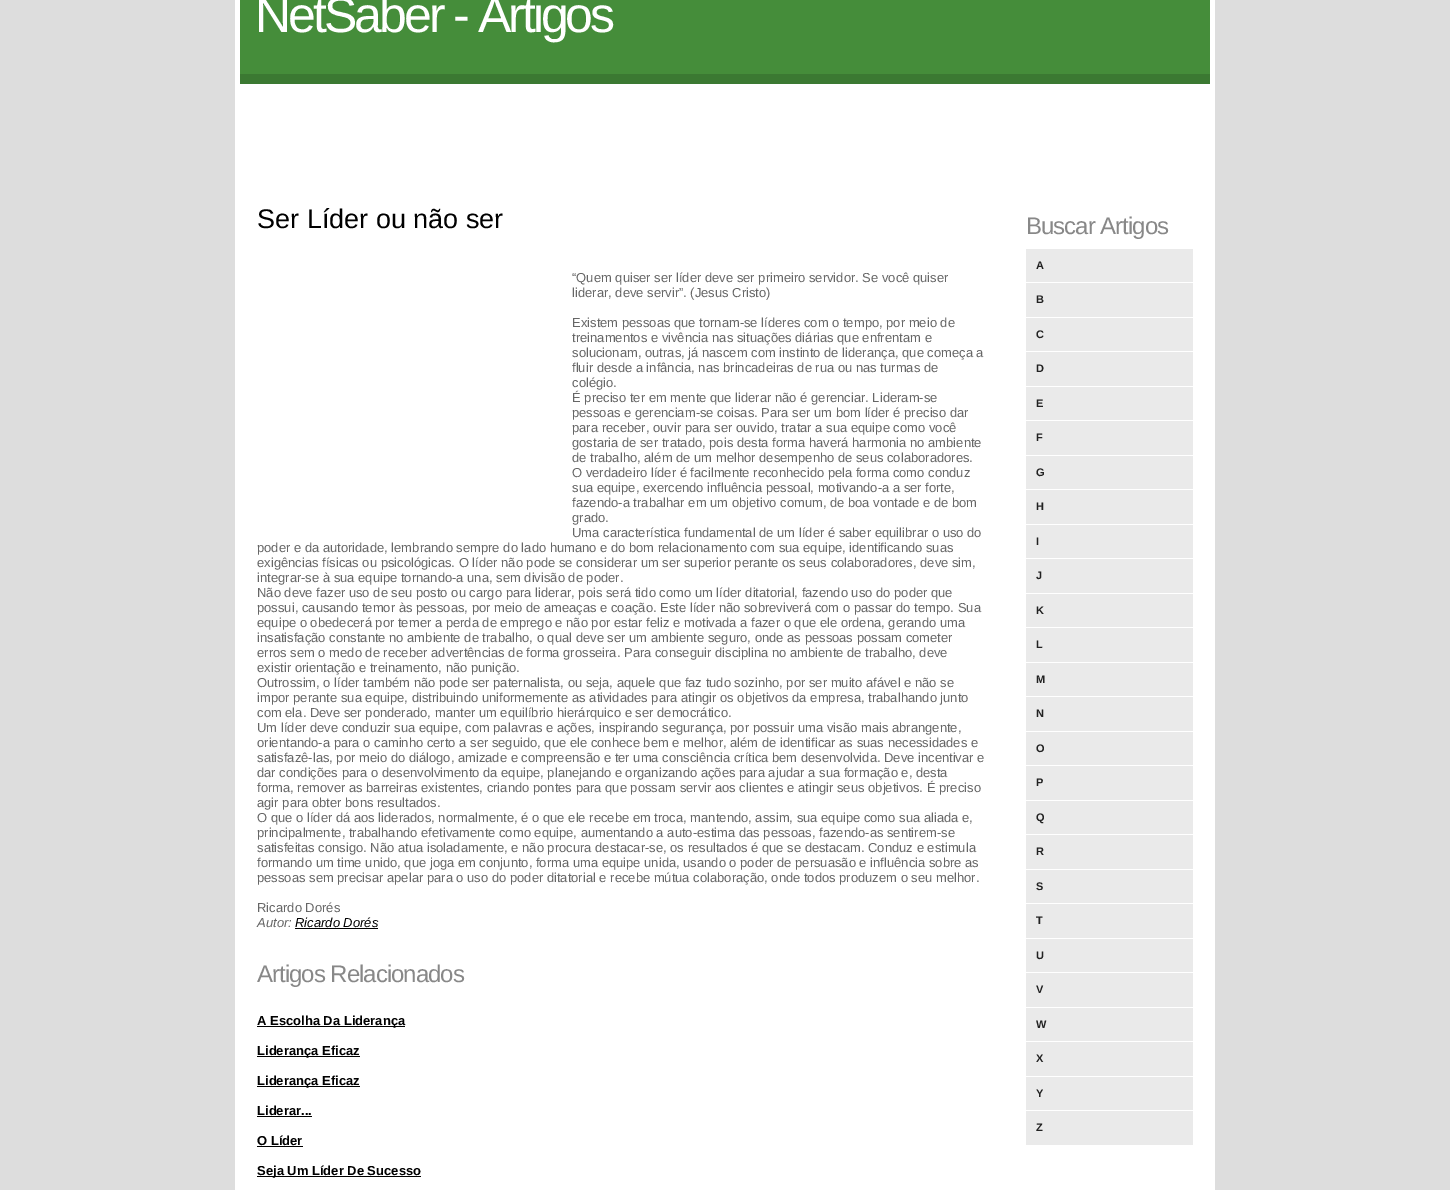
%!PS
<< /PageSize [1450 1190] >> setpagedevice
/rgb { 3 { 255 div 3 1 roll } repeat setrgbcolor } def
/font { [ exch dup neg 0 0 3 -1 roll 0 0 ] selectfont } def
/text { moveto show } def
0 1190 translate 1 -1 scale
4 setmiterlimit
221 221 221 rgb
0 0 1450 1190 rectfill
255 255 255 rgb
235 0 980 1190 rectfill
69 141 58 rgb
240 0 970 74 rectfill
59 121 50 rgb
240 74 970 10 rectfill
0 0 0 rgb
295 928 83 1 rectfill
257 1026 148 1 rectfill
257 1056 103 1 rectfill
257 1086 103 1 rectfill
257 1116 55 1 rectfill
257 1146 46 1 rectfill
257 1176 164 1 rectfill
234 234 234 rgb
1026 249 167 33 rectfill
1026 283 167 34 rectfill
1026 318 167 33 rectfill
1026 352 167 34 rectfill
1026 387 167 33 rectfill
1026 421 167 34 rectfill
1026 456 167 33 rectfill
1026 490 167 34 rectfill
1026 525 167 33 rectfill
1026 559 167 34 rectfill
1026 594 167 33 rectfill
1026 628 167 34 rectfill
1026 663 167 33 rectfill
1026 697 167 34 rectfill
1026 732 167 33 rectfill
1026 766 167 34 rectfill
1026 801 167 33 rectfill
1026 835 167 34 rectfill
1026 870 167 33 rectfill
1026 904 167 34 rectfill
1026 939 167 33 rectfill
1026 973 167 34 rectfill
1026 1008 167 33 rectfill
1026 1042 167 34 rectfill
1026 1077 167 33 rectfill
1026 1111 167 34 rectfill
/LiberationSans-Regular 50 font
255 255 255 rgb
255 32 moveto -3 0 (NetSaber - Artigos) ashow
/LiberationSans-Regular 27 font
0 0 0 rgb
(Ser Líder ou não ser) 257 228 text
/LiberationSans-Regular 13 font
102 102 102 rgb
(“Quem quiser ser líder deve ser primeiro servidor. Se você quiser) 572 282 text
(liderar, deve servir”. \(Jesus Cristo\)) 572 297 text
(Existem pessoas que tornam-se líderes com o tempo, por meio de) 572 327 text
(treinamentos e vivência nas situações diárias que enfrentam e) 572 342 text
(solucionam, outras, já nascem com instinto de liderança, que começa a) 572 357 text
(fluir desde a infância, nas brincadeiras de rua ou nas turmas de) 572 372 text
(colégio.) 572 387 text
(É preciso ter em mente que liderar não é gerenciar. Lideram-se) 572 402 text
(pessoas e gerenciam-se coisas. Para ser um bom líder é preciso dar) 572 417 text
(para receber, ouvir para ser ouvido, tratar a sua equipe como você) 572 432 text
(gostaria de ser tratado, pois desta forma haverá harmonia no ambiente) 572 447 text
(de trabalho, além de um melhor desempenho de seus colaboradores.) 572 462 text
(O verdadeiro líder é facilmente reconhecido pela forma como conduz) 572 477 text
(sua equipe, exercendo influência pessoal, motivando-a a ser forte,) 572 492 text
(fazendo-a trabalhar em um objetivo comum, de boa vontade e de bom) 572 507 text
(grado.) 572 522 text
(Uma característica fundamental de um líder é saber equilibrar o uso do) 572 537 text
(poder e da autoridade, lembrando sempre do lado humano e do bom relacionamento com sua equipe, identificando suas) 257 552 text
(exigências físicas ou psicológicas. O líder não pode se considerar um ser superior perante os seus colaboradores, deve sim,) 257 567 text
(integrar-se à sua equipe tornando-a una, sem divisão de poder.) 257 582 text
(Não deve fazer uso de seu posto ou cargo para liderar, pois será tido como um líder ditatorial, fazendo uso do poder que) 257 597 text
(possui, causando temor às pessoas, por meio de ameaças e coação. Este líder não sobreviverá com o passar do tempo. Sua) 257 612 text
(equipe o obedecerá por temer a perda de emprego e não por estar feliz e motivada a fazer o que ele ordena, gerando uma) 257 627 text
(insatisfação constante no ambiente de trabalho, o qual deve ser um ambiente seguro, onde as pessoas possam cometer) 257 642 text
(erros sem o medo de receber advertências de forma grosseira. Para conseguir disciplina no ambiente de trabalho, deve) 257 657 text
(existir orientação e treinamento, não punição.) 257 672 text
(Outrossim, o líder também não pode ser paternalista, ou seja, aquele que faz tudo sozinho, por ser muito afável e não se) 257 687 text
(impor perante sua equipe, distribuindo uniformemente as atividades para atingir os objetivos da empresa, trabalhando junto) 257 702 text
(com ela. Deve ser ponderado, manter um equilíbrio hierárquico e ser democrático.) 257 717 text
(Um líder deve conduzir sua equipe, com palavras e ações, inspirando segurança, por possuir uma visão mais abrangente,) 257 732 text
(orientando-a para o caminho certo a ser seguido, que ele conhece bem e melhor, além de identificar as suas necessidades e) 257 747 text
(satisfazê-las, por meio do diálogo, amizade e compreensão e ter uma consciência crítica bem desenvolvida. Deve incentivar e) 257 762 text
(dar condições para o desenvolvimento da equipe, planejando e organizando ações para ajudar a sua formação e, desta) 257 777 text
(forma, remover as barreiras existentes, criando pontes para que possam servir aos clientes e atingir seus objetivos. É preciso) 257 792 text
(agir para obter bons resultados.) 257 807 text
(O que o líder dá aos liderados, normalmente, é o que ele recebe em troca, mantendo, assim, sua equipe como sua aliada e,) 257 822 text
(principalmente, trabalhando efetivamente como equipe, aumentando a auto-estima das pessoas, fazendo-as sentirem-se) 257 837 text
(satisfeitas consigo. Não atua isoladamente, e não procura destacar-se, os resultados é que se destacam. Conduz e estimula) 257 852 text
(formando um time unido, que joga em conjunto, forma uma equipe unida, usando o poder de persuasão e influência sobre as) 257 867 text
(pessoas sem precisar apelar para o uso do poder ditatorial e recebe mútua colaboração, onde todos produzem o seu melhor.) 257 882 text
(Ricardo Dorés) 257 912 text
/LiberationSans-Italic 13 font
(Autor:) 257 927 text
0 0 0 rgb
(Ricardo Dorés) 295 927 text
/LiberationSans-Regular 24 font
136 136 136 rgb
257 982 moveto -1 0 (Artigos Relacionados) ashow
/LiberationSans-Bold 13 font
0 0 0 rgb
(A Escolha Da Liderança) 257 1025 text
(Liderança Eficaz) 257 1055 text
(Liderança Eficaz) 257 1085 text
(Liderar...) 257 1115 text
(O Líder) 257 1145 text
(Seja Um Líder De Sucesso) 257 1175 text
/LiberationSans-Regular 24 font
136 136 136 rgb
1026 234 moveto -1 0 (Buscar Artigos) ashow
/LiberationSans-Bold 11 font
34 34 34 rgb
(A) 1036 269 text
(B) 1036 303 text
(C) 1036 338 text
(D) 1036 372 text
(E) 1036 407 text
(F) 1036 441 text
(G) 1036 476 text
(H) 1036 510 text
(I) 1036 545 text
(J) 1036 579 text
(K) 1036 614 text
(L) 1036 648 text
(M) 1036 683 text
(N) 1036 717 text
(O) 1036 752 text
(P) 1036 786 text
(Q) 1036 821 text
(R) 1036 855 text
(S) 1036 890 text
(T) 1036 924 text
(U) 1036 959 text
(V) 1036 993 text
(W) 1036 1028 text
(X) 1036 1062 text
(Y) 1036 1097 text
(Z) 1036 1131 text
showpage
